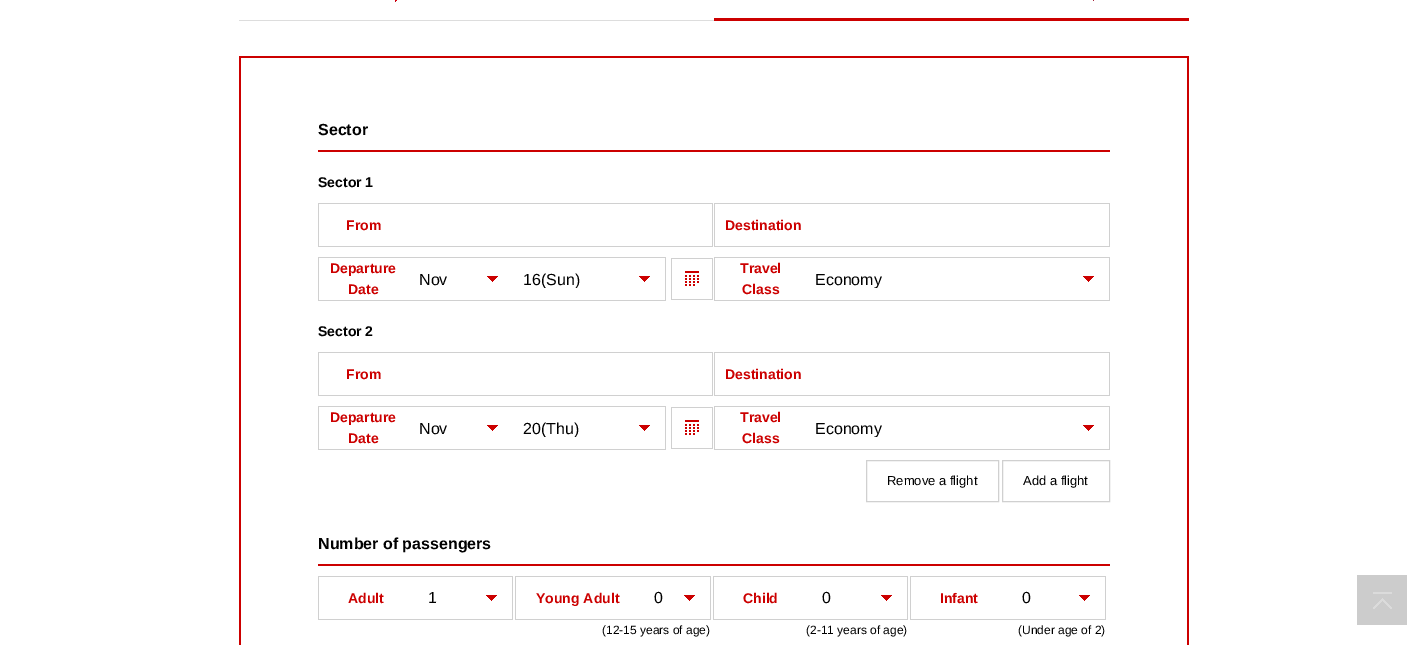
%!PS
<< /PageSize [1427 645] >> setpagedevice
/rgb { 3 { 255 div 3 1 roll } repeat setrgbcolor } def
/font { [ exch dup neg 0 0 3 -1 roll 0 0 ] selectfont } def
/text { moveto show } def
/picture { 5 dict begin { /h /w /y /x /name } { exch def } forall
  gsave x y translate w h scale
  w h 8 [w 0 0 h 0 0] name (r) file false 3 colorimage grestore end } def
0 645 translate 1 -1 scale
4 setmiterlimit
255 255 255 rgb
0 0 1427 645 rectfill
(img_01.rgb) 395 0 2 2 picture
204 0 0 rgb
714 18 475 3 rectfill
167 36 58 rgb
1093 0 1 1 rectfill
221 221 221 rgb
239 20 475 1 rectfill
204 0 0 rgb
239 56 950 589 rectfill
255 255 255 rgb
241 58 946 587 rectfill
204 0 0 rgb
318 150 792 2 rectfill
208 208 208 rgb
318 203 395 1 rectfill
318 246 91 1 rectfill
318 203 1 44 rectfill
712 203 1 44 rectfill
409 246 304 1 rectfill
714 203 396 1 rectfill
714 246 98 1 rectfill
714 203 1 44 rectfill
1109 203 1 44 rectfill
812 246 298 1 rectfill
318 257 348 1 rectfill
318 300 195 1 rectfill
318 257 1 44 rectfill
(img_02.rgb) 487 276 11 6 picture
665 257 1 44 rectfill
513 300 153 1 rectfill
(img_02.rgb) 639 276 11 6 picture
(img_03.rgb) 671 258 42 42 picture
714 257 396 1 rectfill
714 300 91 1 rectfill
714 257 1 44 rectfill
1109 257 1 44 rectfill
805 300 305 1 rectfill
(img_02.rgb) 1083 276 11 6 picture
318 352 395 1 rectfill
318 395 91 1 rectfill
318 352 1 44 rectfill
712 352 1 44 rectfill
409 395 304 1 rectfill
714 352 396 1 rectfill
714 395 98 1 rectfill
714 352 1 44 rectfill
1109 352 1 44 rectfill
812 395 298 1 rectfill
318 406 348 1 rectfill
318 449 195 1 rectfill
318 406 1 44 rectfill
(img_02.rgb) 487 425 11 6 picture
665 406 1 44 rectfill
513 449 153 1 rectfill
(img_02.rgb) 639 425 11 6 picture
(img_03.rgb) 671 407 42 42 picture
714 406 396 1 rectfill
714 449 91 1 rectfill
714 406 1 44 rectfill
1109 406 1 44 rectfill
805 449 305 1 rectfill
(img_02.rgb) 1083 425 11 6 picture
866.5 460.5 132 41 rectstroke
1002.5 460.5 107 41 rectstroke
204 0 0 rgb
318 564 792 2 rectfill
208 208 208 rgb
318 576 195 1 rectfill
318 619 95 1 rectfill
318 576 1 44 rectfill
512 576 1 44 rectfill
413 619 100 1 rectfill
(img_02.rgb) 486 595 11 6 picture
515 576 196 1 rectfill
515 619 124 1 rectfill
515 576 1 44 rectfill
710 576 1 44 rectfill
639 619 72 1 rectfill
(img_02.rgb) 684 595 11 6 picture
713 576 195 1 rectfill
713 619 94 1 rectfill
713 576 1 44 rectfill
907 576 1 44 rectfill
807 619 101 1 rectfill
(img_02.rgb) 881 595 11 6 picture
910 576 196 1 rectfill
910 619 97 1 rectfill
910 576 1 44 rectfill
1105 576 1 44 rectfill
1007 619 99 1 rectfill
(img_02.rgb) 1079 595 11 6 picture
204 204 204 rgb
1357 575 50 50 rectfill
(img_04.rgb) 1373 592 19 17 picture
/LiberationSans-Bold 16 font
0 0 0 rgb
(Sector) 318 135 text
/LiberationSans-Bold 14 font
(Sector 1) 318 187 text
204 0 0 rgb
(From) 346 230 text
(Destination) 725 230 text
(Departure) 330 273 text
(Date) 348 294 text
/LiberationSans-Regular 16 font
0 0 0 rgb
(Nov) 419 285 text
gsave
523 271 112 17 rectclip
(16\(Sun\)) 523 285 text
grestore
/LiberationSans-Bold 14 font
204 0 0 rgb
(Travel) 740 273 text
(Class) 742 294 text
gsave
815 271 264 17 rectclip
/LiberationSans-Regular 16 font
0 0 0 rgb
(Economy) 815 285 text
grestore
0 0 0 rgb
(Sector 2) 318 336 text
204 0 0 rgb
(From) 346 379 text
(Destination) 725 379 text
(Departure) 330 422 text
(Date) 348 443 text
/LiberationSans-Regular 16 font
0 0 0 rgb
(Nov) 419 434 text
gsave
523 420 112 17 rectclip
(20\(Thu\)) 523 434 text
grestore
/LiberationSans-Bold 14 font
204 0 0 rgb
(Travel) 740 422 text
(Class) 742 443 text
gsave
815 420 264 17 rectclip
/LiberationSans-Regular 16 font
0 0 0 rgb
(Economy) 815 434 text
grestore
/LiberationSans-Regular 13 font
0 0 0 rgb
(Remove a flight) 887 485 text
(Add a flight) 1023 485 text
/LiberationSans-Bold 16 font
(Number of passengers) 318 549 text
/LiberationSans-Bold 14 font
204 0 0 rgb
(Adult) 348 603 text
/LiberationSans-Regular 16 font
0 0 0 rgb
(1) 428 603 text
/LiberationSans-Bold 14 font
204 0 0 rgb
(Young Adult) 536 603 text
/LiberationSans-Regular 16 font
0 0 0 rgb
(0) 654 603 text
/LiberationSans-Regular 12 font
(\(12-15 years of age\)) 602 634 text
/LiberationSans-Bold 14 font
204 0 0 rgb
(Child) 743 603 text
/LiberationSans-Regular 16 font
0 0 0 rgb
(0) 822 603 text
/LiberationSans-Regular 12 font
(\(2-11 years of age\)) 806 634 text
/LiberationSans-Bold 14 font
204 0 0 rgb
(Infant) 940 603 text
/LiberationSans-Regular 16 font
0 0 0 rgb
(0) 1022 603 text
/LiberationSans-Regular 12 font
(\(Under age of 2\)) 1018 634 text
showpage
